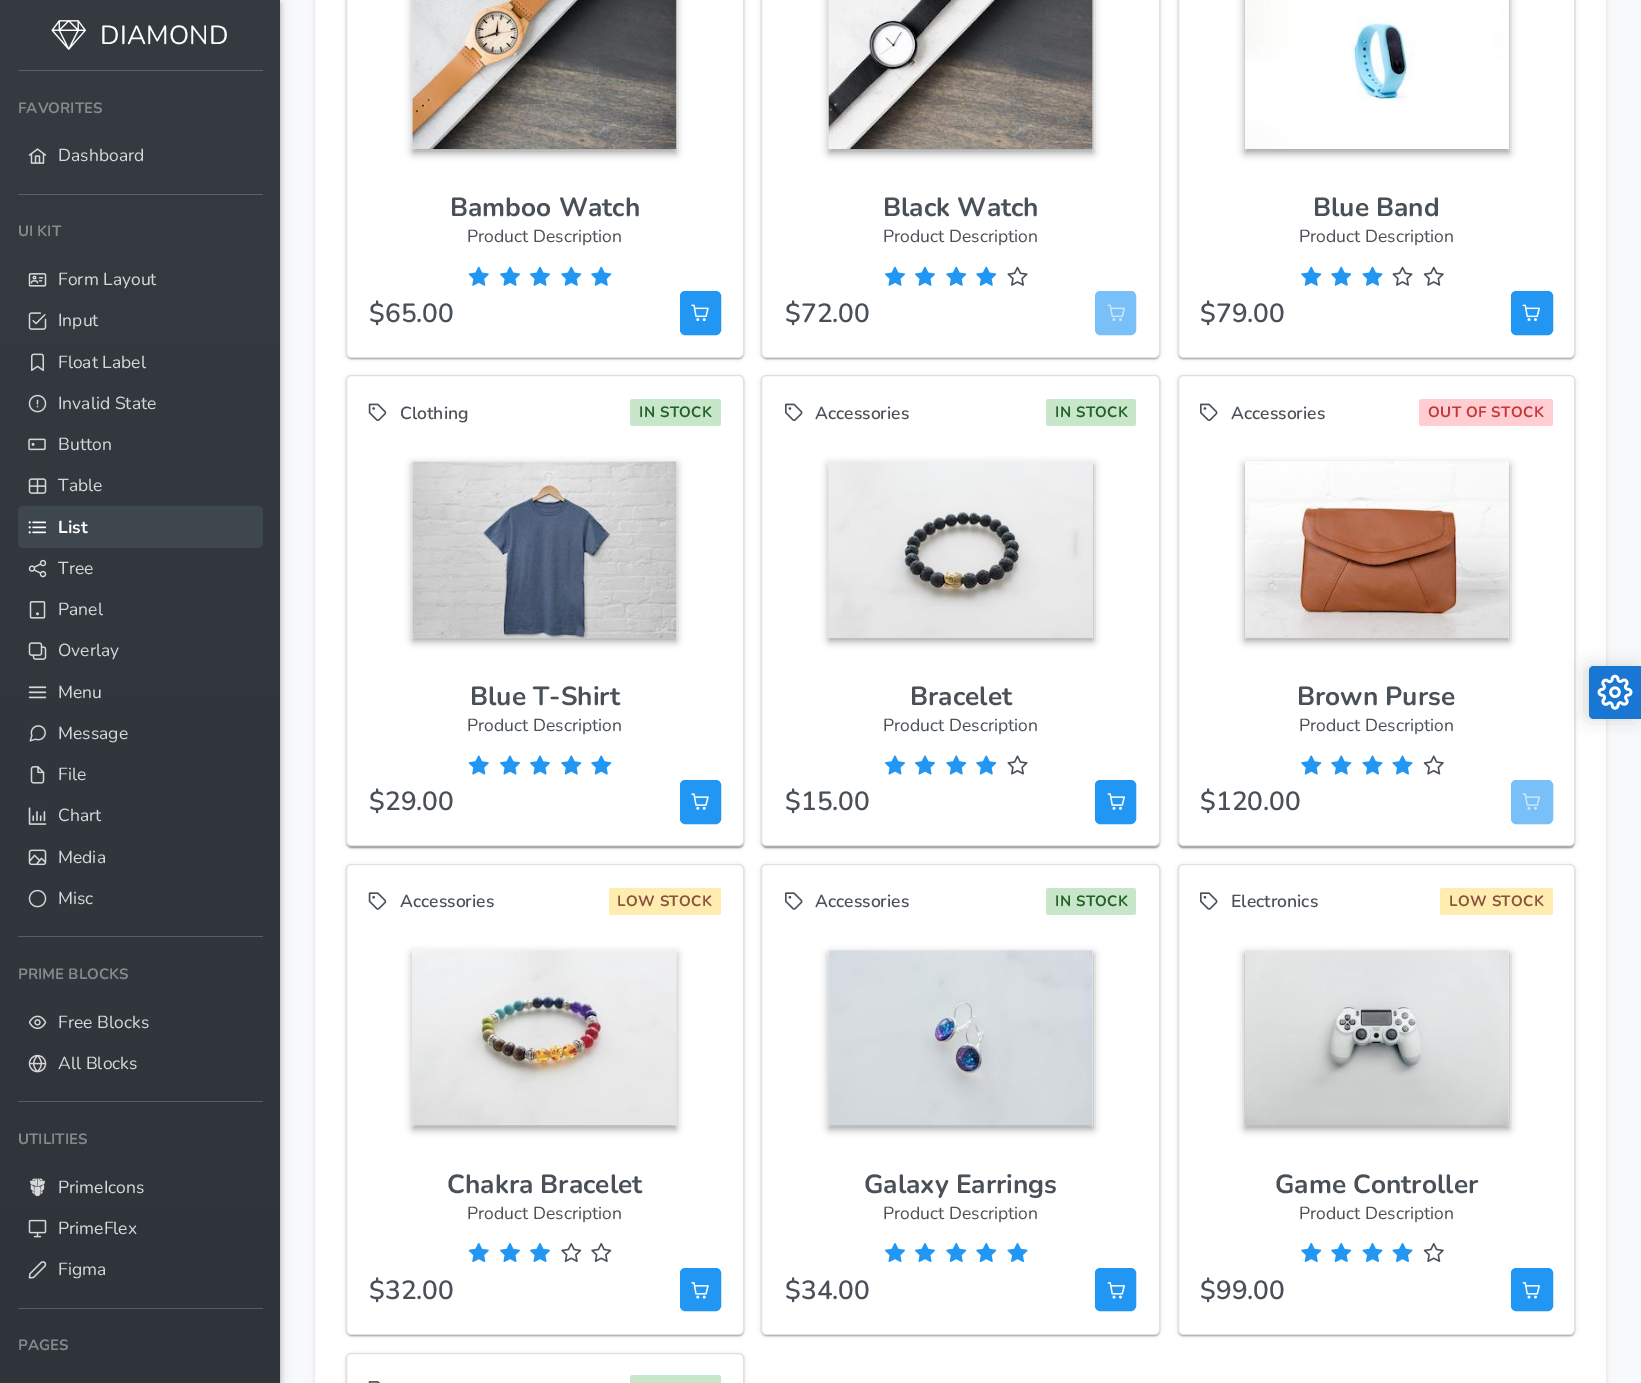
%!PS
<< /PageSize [1641 1383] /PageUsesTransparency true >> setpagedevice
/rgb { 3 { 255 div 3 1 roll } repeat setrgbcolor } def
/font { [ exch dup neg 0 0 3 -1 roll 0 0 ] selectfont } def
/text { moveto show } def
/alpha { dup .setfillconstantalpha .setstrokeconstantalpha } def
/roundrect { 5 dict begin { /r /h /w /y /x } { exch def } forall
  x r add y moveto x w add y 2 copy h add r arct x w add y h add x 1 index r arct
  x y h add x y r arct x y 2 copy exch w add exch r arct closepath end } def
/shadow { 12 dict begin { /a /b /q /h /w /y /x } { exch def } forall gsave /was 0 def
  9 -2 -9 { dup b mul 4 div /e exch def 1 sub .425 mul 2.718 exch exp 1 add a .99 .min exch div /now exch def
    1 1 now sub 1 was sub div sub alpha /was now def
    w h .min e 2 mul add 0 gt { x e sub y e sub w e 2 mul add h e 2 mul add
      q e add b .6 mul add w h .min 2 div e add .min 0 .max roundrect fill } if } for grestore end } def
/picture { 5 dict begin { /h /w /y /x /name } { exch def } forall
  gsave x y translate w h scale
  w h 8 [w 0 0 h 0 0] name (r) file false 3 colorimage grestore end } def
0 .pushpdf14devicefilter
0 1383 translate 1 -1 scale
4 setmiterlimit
248 249 250 rgb
0 0 1641 1383 rectfill
0 0 0 rgb
0 1 280 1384 0 6 0.12 shadow
0 5 280 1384 0 3 0.14 shadow
1 4 278 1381 0 2.5 0.2 shadow
gsave 0 0 moveto 280 0 rlineto 0 1383 rlineto -280 0 rlineto closepath clip newpath
<< /ShadingType 2 /ColorSpace /DeviceRGB /Coords [140 0 140 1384] /Extend [true true] /Function << /FunctionType 3 /Domain [0 1] /Functions [<< /FunctionType 2 /Domain [0 1] /C0 [0.204 0.227 0.251] /C1 [0.204 0.227 0.251] /N 1 >> << /FunctionType 2 /Domain [0 1] /C0 [0.204 0.227 0.251] /C1 [0.18 0.204 0.224] /N 1 >>] /Bounds [0.1] /Encode [0 1 0 1] >> >> shfill grestore
93 97 102 rgb
18 70 245 1 rectfill
(img_01.rgb) 51 20 35 30 picture
(img_02.rgb) 28 148 19 16 picture
18 194 245 1 rectfill
(img_03.rgb) 28 273 19 14 picture
(img_04.rgb) 28 312 19 18 picture
(img_05.rgb) 31 353 13 19 picture
(img_06.rgb) 28 394 19 19 picture
(img_07.rgb) 28 438 18 13 picture
(img_08.rgb) 28 478 19 16 picture
63 71 78 rgb
18 506 245 42 5 roundrect fill
(img_09.rgb) 28 521 19 13 picture
(img_10.rgb) 28 559 19 19 picture
(img_11.rgb) 29 601 17 18 picture
(img_12.rgb) 28 642 19 18 picture
(img_13.rgb) 28 686 19 13 picture
(img_14.rgb) 29 725 17 17 picture
(img_15.rgb) 30 766 15 18 picture
(img_16.rgb) 28 807 19 18 picture
(img_17.rgb) 28 849 19 17 picture
(img_18.rgb) 28 889 19 19 picture
89 94 99 rgb
18 936 245 1 rectfill
(img_19.rgb) 28 1015 19 15 picture
(img_20.rgb) 28 1054 19 19 picture
89 93 98 rgb
18 1101 245 1 rectfill
(img_21.rgb) 29 1178 16 19 picture
(img_22.rgb) 28 1219 19 19 picture
(img_23.rgb) 28 1261 19 18 picture
88 93 97 rgb
18 1308 245 1 rectfill
0 0 0 rgb
315 -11 1291 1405 5 2 0.12 shadow
255 255 255 rgb
315 0 1291 1383 rectfill
0 0 0 rgb
346 -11 398 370 5 2 0.12 shadow
346 -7 398 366 5 0.5 0.14 shadow
348 -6 395 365 4 0.5 0.2 shadow
255 255 255 rgb
346.5 -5.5 397 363 4.5 roundrect gsave fill grestore
222 226 230 rgb
stroke
0 0 0 rgb
413 -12 263 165 0 4 0.23 shadow
413 -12 263 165 0 4 0.16 shadow
(img_24.rgb) 412 0 265 149 picture
(img_25.rgb) 468 266 21 20 picture
(img_26.rgb) 500 266 20 20 picture
(img_26.rgb) 530 266 20 20 picture
(img_27.rgb) 561 266 21 20 picture
(img_27.rgb) 591 266 21 20 picture
33 150 243 rgb
680.5 291.5 40 43 4.5 roundrect gsave fill grestore
stroke
(img_28.rgb) 691 304 18 18 picture
0 0 0 rgb
761 -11 399 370 5 2 0.12 shadow
761 -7 399 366 5 0.5 0.14 shadow
763 -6 396 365 4 0.5 0.2 shadow
255 255 255 rgb
761.5 -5.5 398 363 4.5 roundrect gsave fill grestore
222 226 230 rgb
stroke
0 0 0 rgb
829 -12 264 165 0 4 0.23 shadow
829 -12 264 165 0 4 0.16 shadow
(img_29.rgb) 828 0 265 149 picture
(img_26.rgb) 885 266 20 20 picture
(img_26.rgb) 915 266 20 20 picture
(img_27.rgb) 946 266 21 20 picture
(img_27.rgb) 976 266 21 20 picture
(img_30.rgb) 1007 266 21 20 picture
122 192 248 rgb
1095.5 291.5 40 43 4.5 roundrect gsave fill grestore
stroke
(img_31.rgb) 1107 304 18 17 picture
0 0 0 rgb
1178 -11 397 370 5 2 0.12 shadow
1178 -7 397 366 5 0.5 0.14 shadow
1179 -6 395 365 4 0.5 0.2 shadow
255 255 255 rgb
1178.5 -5.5 396 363 4.5 roundrect gsave fill grestore
222 226 230 rgb
stroke
0 0 0 rgb
1245 -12 264 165 0 4 0.23 shadow
1245 -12 264 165 0 4 0.16 shadow
(img_32.rgb) 1245 0 264 149 picture
(img_27.rgb) 1301 266 21 20 picture
(img_27.rgb) 1331 266 21 20 picture
(img_33.rgb) 1362 266 21 20 picture
(img_30.rgb) 1392 266 21 20 picture
(img_34.rgb) 1423 266 21 20 picture
33 150 243 rgb
1511.5 291.5 41 43 4.5 roundrect gsave fill grestore
stroke
(img_35.rgb) 1522 304 18 18 picture
0 0 0 rgb
346 376 398 472 5 2 0.12 shadow
346 376 398 472 5 0.5 0.14 shadow
348 379 395 469 4 0.5 0.2 shadow
255 255 255 rgb
346.5 375.5 397 470 4.5 roundrect gsave fill grestore
222 226 230 rgb
stroke
(img_36.rgb) 368 403 19 19 picture
200 230 201 rgb
630 399 91 27 2.5 roundrect fill
0 0 0 rgb
413 465 263 176 0 4 0.23 shadow
413 465 263 176 0 4 0.16 shadow
(img_37.rgb) 412 461 265 177 picture
(img_38.rgb) 468 755 21 20 picture
(img_39.rgb) 500 755 20 20 picture
(img_39.rgb) 530 755 20 20 picture
(img_40.rgb) 561 755 21 20 picture
(img_40.rgb) 591 755 21 20 picture
33 150 243 rgb
680.5 780.5 40 43 4.5 roundrect gsave fill grestore
stroke
(img_41.rgb) 691 793 18 17 picture
0 0 0 rgb
761 376 399 472 5 2 0.12 shadow
761 376 399 472 5 0.5 0.14 shadow
763 379 396 469 4 0.5 0.2 shadow
255 255 255 rgb
761.5 375.5 398 470 4.5 roundrect gsave fill grestore
222 226 230 rgb
stroke
(img_42.rgb) 785 403 18 18 picture
200 230 201 rgb
1046 399 90 27 2.5 roundrect fill
0 0 0 rgb
829 465 264 176 0 4 0.23 shadow
829 465 264 176 0 4 0.16 shadow
(img_43.rgb) 828 461 265 177 picture
(img_39.rgb) 885 755 20 20 picture
(img_39.rgb) 915 755 20 20 picture
(img_40.rgb) 946 755 21 20 picture
(img_40.rgb) 976 755 21 20 picture
(img_44.rgb) 1007 755 21 20 picture
33 150 243 rgb
1095.5 780.5 40 43 4.5 roundrect gsave fill grestore
stroke
(img_45.rgb) 1107 793 18 17 picture
0 0 0 rgb
1178 376 397 472 5 2 0.12 shadow
1178 376 397 472 5 0.5 0.14 shadow
1179 379 395 469 4 0.5 0.2 shadow
255 255 255 rgb
1178.5 375.5 396 470 4.5 roundrect gsave fill grestore
222 226 230 rgb
stroke
(img_42.rgb) 1200 403 18 18 picture
255 205 210 rgb
1419 399 134 27 2.5 roundrect fill
0 0 0 rgb
1245 465 264 176 0 4 0.23 shadow
1245 465 264 176 0 4 0.16 shadow
(img_46.rgb) 1245 461 264 177 picture
(img_40.rgb) 1301 755 21 20 picture
(img_40.rgb) 1331 755 21 20 picture
(img_47.rgb) 1362 755 21 20 picture
(img_47.rgb) 1392 755 21 20 picture
(img_48.rgb) 1423 755 21 20 picture
122 192 248 rgb
1511.5 780.5 41 43 4.5 roundrect gsave fill grestore
stroke
(img_49.rgb) 1522 793 18 17 picture
0 0 0 rgb
346 865 398 471 5 2 0.12 shadow
346 865 398 471 5 0.5 0.14 shadow
348 868 395 468 4 0.5 0.2 shadow
255 255 255 rgb
346.5 864.5 397 470 4.5 roundrect gsave fill grestore
222 226 230 rgb
stroke
(img_50.rgb) 368 892 19 18 picture
254 237 175 rgb
609 888 112 27 2.5 roundrect fill
0 0 0 rgb
413 954 263 175 0 4 0.23 shadow
413 954 263 175 0 4 0.16 shadow
(img_51.rgb) 412 950 265 176 picture
(img_52.rgb) 468 1243 21 19 picture
(img_53.rgb) 500 1243 20 19 picture
(img_53.rgb) 530 1243 20 19 picture
(img_54.rgb) 561 1243 21 19 picture
(img_54.rgb) 591 1243 21 19 picture
33 150 243 rgb
680.5 1268.5 40 42 4.5 roundrect gsave fill grestore
stroke
(img_55.rgb) 691 1282 18 17 picture
0 0 0 rgb
761 865 399 471 5 2 0.12 shadow
761 865 399 471 5 0.5 0.14 shadow
763 868 396 468 4 0.5 0.2 shadow
255 255 255 rgb
761.5 864.5 398 470 4.5 roundrect gsave fill grestore
222 226 230 rgb
stroke
(img_56.rgb) 785 892 18 18 picture
200 230 201 rgb
1046 888 90 27 2.5 roundrect fill
0 0 0 rgb
829 954 264 175 0 4 0.23 shadow
829 954 264 175 0 4 0.16 shadow
(img_57.rgb) 828 950 265 176 picture
(img_53.rgb) 885 1243 20 19 picture
(img_53.rgb) 915 1243 20 19 picture
(img_58.rgb) 946 1243 21 19 picture
(img_58.rgb) 976 1243 21 19 picture
(img_59.rgb) 1007 1243 21 19 picture
33 150 243 rgb
1095.5 1268.5 40 42 4.5 roundrect gsave fill grestore
stroke
(img_60.rgb) 1107 1282 18 17 picture
0 0 0 rgb
1178 865 397 471 5 2 0.12 shadow
1178 865 397 471 5 0.5 0.14 shadow
1179 868 395 468 4 0.5 0.2 shadow
255 255 255 rgb
1178.5 864.5 396 470 4.5 roundrect gsave fill grestore
222 226 230 rgb
stroke
(img_56.rgb) 1200 892 18 18 picture
254 237 175 rgb
1440 888 113 27 2.5 roundrect fill
0 0 0 rgb
1245 954 264 175 0 4 0.23 shadow
1245 954 264 175 0 4 0.16 shadow
(img_61.rgb) 1245 950 264 176 picture
(img_58.rgb) 1301 1243 21 19 picture
(img_58.rgb) 1331 1243 21 19 picture
(img_59.rgb) 1362 1243 21 19 picture
(img_59.rgb) 1392 1243 21 19 picture
(img_62.rgb) 1423 1243 21 19 picture
33 150 243 rgb
1511.5 1268.5 41 42 4.5 roundrect gsave fill grestore
stroke
(img_60.rgb) 1522 1282 18 17 picture
0 0 0 rgb
346 1354 398 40 5 2 0.12 shadow
346 1354 398 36 5 0.5 0.14 shadow
255 255 255 rgb
346.5 1353.5 397 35 4.5 roundrect gsave fill grestore
222 226 230 rgb
stroke
(img_63.rgb) 368 1381 12 2 picture
200 230 201 rgb
630 1375 91 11 2.5 roundrect fill
0 0 0 rgb
1585 666 53 53 5 9 0.15 shadow
25 118 210 rgb
1594 666 moveto 47 0 rlineto 0 53 rlineto -47 0 rlineto -3 0 -5 -2 -5 -5 rcurveto 0 -43 rlineto 0 -3 2 -5 5 -5 rcurveto closepath fill
(img_64.rgb) 1597 674 36 36 picture
/Nunito-Regular 26.25 font
255 255 255 rgb
100 44 moveto 0.25 0 (DIAMOND) ashow
/Nunito-Bold 15 font
133 137 140 rgb
(FAVORITES) 18 113 text
/Nunito-Regular 17.5 font
214 216 217 rgb
(Dashboard) 58 161 text
/Nunito-Bold 15 font
133 137 140 rgb
(UI KIT) 18 236 text
/Nunito-Regular 17.5 font
214 216 217 rgb
(Form Layout) 58 285 text
(Input) 58 326 text
(Float Label) 58 368 text
(Invalid State) 58 409 text
(Button) 58 450 text
(Table) 58 491 text
/Nunito-Bold 17.5 font
255 255 255 rgb
(List) 58 533 text
/Nunito-Regular 17.5 font
214 216 217 rgb
(Tree) 58 574 text
(Panel) 58 615 text
(Overlay) 58 656 text
(Menu) 58 698 text
(Message) 58 739 text
(File) 58 780 text
(Chart) 58 821 text
(Media) 58 863 text
(Misc) 58 904 text
/Nunito-Bold 15 font
133 137 140 rgb
(PRIME BLOCKS) 18 979 text
/Nunito-Regular 17.5 font
214 216 217 rgb
(Free Blocks) 58 1028 text
(All Blocks) 58 1069 text
/Nunito-Bold 15 font
133 137 140 rgb
(UTILITIES) 18 1144 text
/Nunito-Regular 17.5 font
214 216 217 rgb
(PrimeIcons) 58 1193 text
(PrimeFlex) 58 1234 text
(Figma) 58 1275 text
/Nunito-Bold 15 font
133 137 140 rgb
(PAGES) 18 1350 text
/Nunito-Bold 26.25 font
73 80 87 rgb
(Bamboo Watch) 450 216 text
/Nunito-Regular 17.5 font
(Product Description) 467 242 text
/Nunito-SemiBold 26.25 font
($65.00) 369 322 text
/Nunito-Bold 26.25 font
(Black Watch) 883 216 text
/Nunito-Regular 17.5 font
(Product Description) 883 242 text
/Nunito-SemiBold 26.25 font
($72.00) 785 322 text
/Nunito-Bold 26.25 font
(Blue Band) 1313 216 text
/Nunito-Regular 17.5 font
(Product Description) 1299 242 text
/Nunito-SemiBold 26.25 font
($79.00) 1200 322 text
/Nunito-SemiBold 17.5 font
(Clothing) 400 419 text
/Nunito-Bold 15 font
37 96 41 rgb
639 417 moveto 0.4 0 (IN STOCK) ashow
/Nunito-Bold 26.25 font
73 80 87 rgb
(Blue T-Shirt) 470 705 text
/Nunito-Regular 17.5 font
(Product Description) 467 731 text
/Nunito-SemiBold 26.25 font
($29.00) 369 810 text
/Nunito-SemiBold 17.5 font
(Accessories) 815 419 text
/Nunito-Bold 15 font
37 96 41 rgb
1055 417 moveto 0.4 0 (IN STOCK) ashow
/Nunito-Bold 26.25 font
73 80 87 rgb
(Bracelet) 910 705 text
/Nunito-Regular 17.5 font
(Product Description) 883 731 text
/Nunito-SemiBold 26.25 font
($15.00) 785 810 text
/Nunito-SemiBold 17.5 font
(Accessories) 1231 419 text
/Nunito-Bold 15 font
198 55 55 rgb
1428 417 moveto 0.4 0 (OUT OF STOCK) ashow
/Nunito-Bold 26.25 font
73 80 87 rgb
(Brown Purse) 1297 705 text
/Nunito-Regular 17.5 font
(Product Description) 1299 731 text
/Nunito-SemiBold 26.25 font
($120.00) 1200 810 text
/Nunito-SemiBold 17.5 font
(Accessories) 400 907 text
/Nunito-Bold 15 font
138 83 64 rgb
617 906 moveto 0.4 0 (LOW STOCK) ashow
/Nunito-Bold 26.25 font
73 80 87 rgb
(Chakra Bracelet) 447 1193 text
/Nunito-Regular 17.5 font
(Product Description) 467 1219 text
/Nunito-SemiBold 26.25 font
($32.00) 369 1299 text
/Nunito-SemiBold 17.5 font
(Accessories) 815 907 text
/Nunito-Bold 15 font
37 96 41 rgb
1055 906 moveto 0.4 0 (IN STOCK) ashow
/Nunito-Bold 26.25 font
73 80 87 rgb
(Galaxy Earrings) 864 1193 text
/Nunito-Regular 17.5 font
(Product Description) 883 1219 text
/Nunito-SemiBold 26.25 font
($34.00) 785 1299 text
/Nunito-SemiBold 17.5 font
(Electronics) 1231 907 text
/Nunito-Bold 15 font
138 83 64 rgb
1449 906 moveto 0.4 0 (LOW STOCK) ashow
/Nunito-Bold 26.25 font
73 80 87 rgb
(Game Controller) 1275 1193 text
/Nunito-Regular 17.5 font
(Product Description) 1299 1219 text
/Nunito-SemiBold 26.25 font
($99.00) 1200 1299 text
.poppdf14devicefilter showpage
